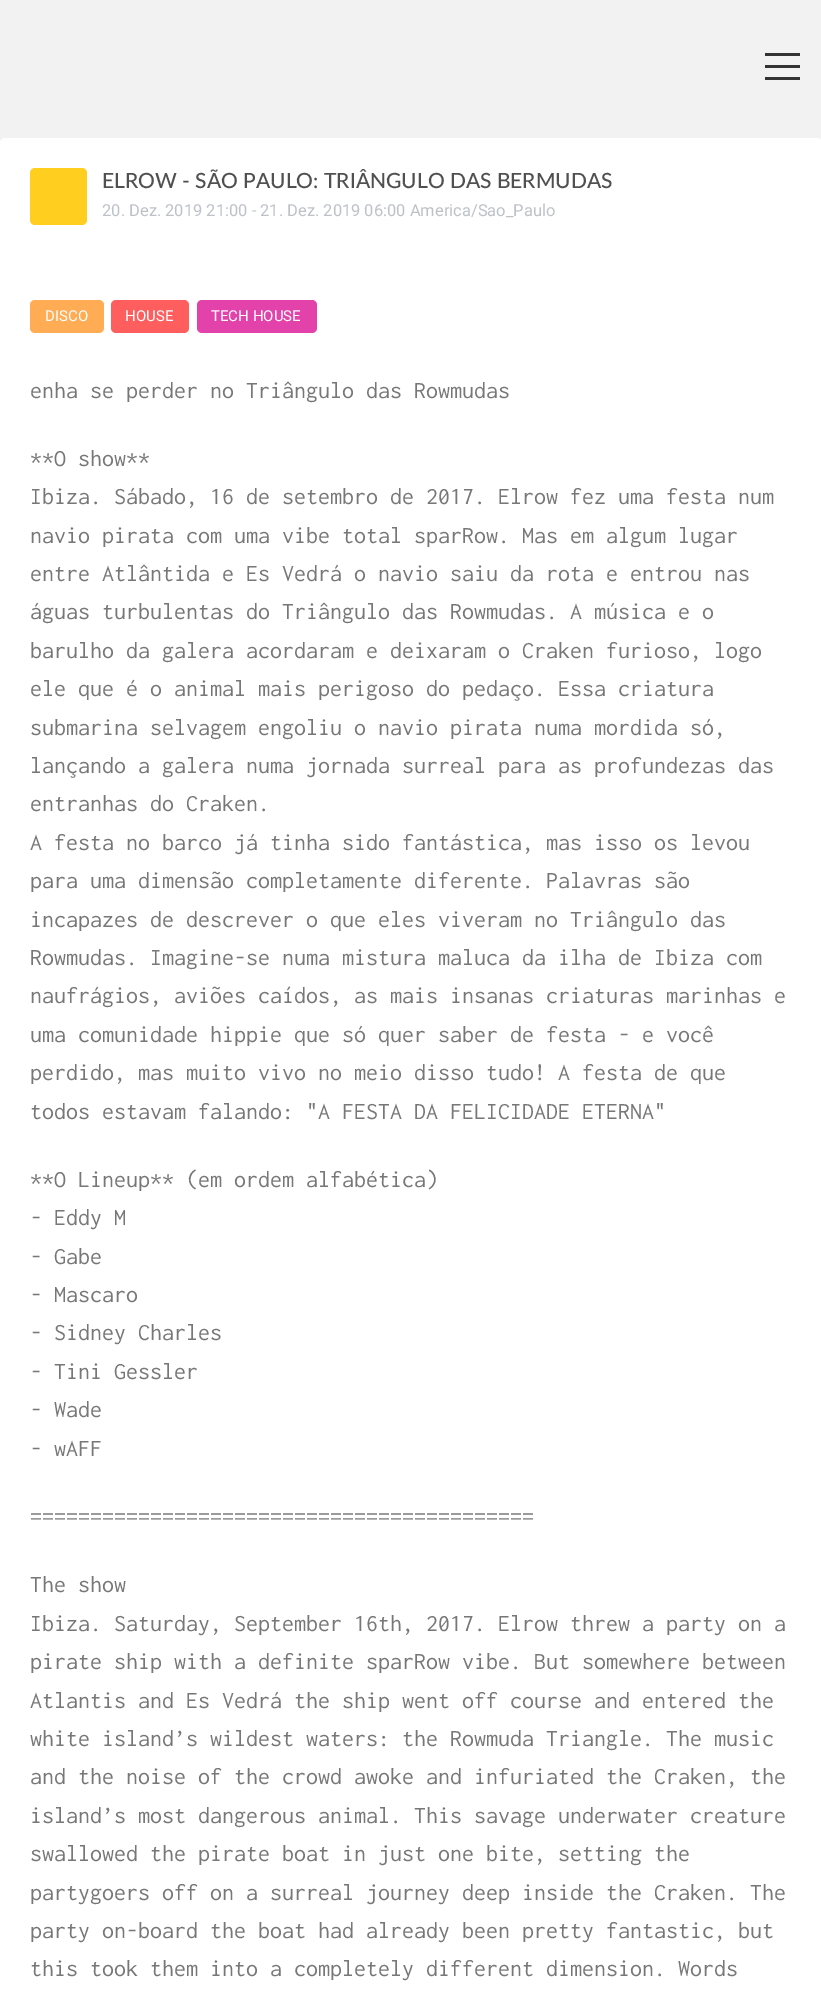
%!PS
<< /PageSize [821 1995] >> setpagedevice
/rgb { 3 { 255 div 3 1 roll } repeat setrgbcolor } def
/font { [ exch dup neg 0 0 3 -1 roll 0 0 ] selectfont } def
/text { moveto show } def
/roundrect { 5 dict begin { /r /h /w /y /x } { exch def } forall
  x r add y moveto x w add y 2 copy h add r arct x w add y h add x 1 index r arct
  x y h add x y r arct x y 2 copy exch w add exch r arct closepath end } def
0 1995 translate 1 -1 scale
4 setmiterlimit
242 242 242 rgb
0 0 821 1995 rectfill
51 51 51 rgb
765 53 35 3 rectfill
765 65 35 3 rectfill
765 77 35 3 rectfill
255 255 255 rgb
0 138 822 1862 5 roundrect fill
255 206 31 rgb
30 168 57 57 5 roundrect fill
255 172 84 rgb
30 300 74 33 5 roundrect fill
255 94 94 rgb
111 300 78 33 5 roundrect fill
227 66 171 rgb
197 300 120 33 5 roundrect fill
/Lato-Medium 21 font
80 80 80 rgb
(ELROW - SÃO PAULO: TRIÂNGULO DAS BERMUDAS) 102 188 text
/Roboto-Regular 16.5 font
189 193 200 rgb
(20. Dez. 2019 21:00 - 21. Dez. 2019 06:00 America/Sao_Paulo) 102 216 text
/Roboto-Regular 15 font
255 255 255 rgb
(DISCO) 45 321 text
(HOUSE) 125 321 text
(TECH HOUSE) 211 321 text
/Inconsolata-Regular 24 font
119 119 119 rgb
(enha se perder no Triângulo das Rowmudas) 30 398 text
(**O show**) 30 466 text
(Ibiza. Sábado, 16 de setembro de 2017. Elrow fez uma festa num) 30 504 text
(navio pirata com uma vibe total sparRow. Mas em algum lugar) 30 543 text
(entre Atlântida e Es Vedrá o navio saiu da rota e entrou nas) 30 581 text
(águas turbulentas do Triângulo das Rowmudas. A música e o) 30 619 text
(barulho da galera acordaram e deixaram o Craken furioso, logo) 30 658 text
(ele que é o animal mais perigoso do pedaço. Essa criatura) 30 696 text
(submarina selvagem engoliu o navio pirata numa mordida só,) 30 735 text
(lançando a galera numa jornada surreal para as profundezas das) 30 773 text
(entranhas do Craken.) 30 811 text
(A festa no barco já tinha sido fantástica, mas isso os levou) 30 850 text
(para uma dimensão completamente diferente. Palavras são) 30 888 text
(incapazes de descrever o que eles viveram no Triângulo das) 30 927 text
(Rowmudas. Imagine-se numa mistura maluca da ilha de Ibiza com) 30 965 text
(naufrágios, aviões caídos, as mais insanas criaturas marinhas e) 30 1003 text
(uma comunidade hippie que só quer saber de festa - e você) 30 1042 text
(perdido, mas muito vivo no meio disso tudo! A festa de que) 30 1080 text
(todos estavam falando: "A FESTA DA FELICIDADE ETERNA") 30 1119 text
(**O Lineup** \(em ordem alfabética\)) 30 1187 text
(- Eddy M) 30 1225 text
(- Gabe) 30 1264 text
(- Mascaro) 30 1302 text
(- Sidney Charles) 30 1340 text
(- Tini Gessler) 30 1379 text
(- Wade) 30 1417 text
(- wAFF) 30 1456 text
(==========================================) 30 1524 text
(The show) 30 1592 text
(Ibiza. Saturday, September 16th, 2017. Elrow threw a party on a) 30 1631 text
(pirate ship with a definite sparRow vibe. But somewhere between) 30 1669 text
(Atlantis and Es Vedrá the ship went off course and entered the) 30 1708 text
(white island’s wildest waters: the Rowmuda Triangle. The music) 30 1746 text
(and the noise of the crowd awoke and infuriated the Craken, the) 30 1784 text
(island’s most dangerous animal. This savage underwater creature) 30 1823 text
(swallowed the pirate boat in just one bite, setting the) 30 1861 text
(partygoers off on a surreal journey deep inside the Craken. The) 30 1900 text
(party on-board the boat had already been pretty fantastic, but) 30 1938 text
(this took them into a completely different dimension. Words) 30 1976 text
showpage
